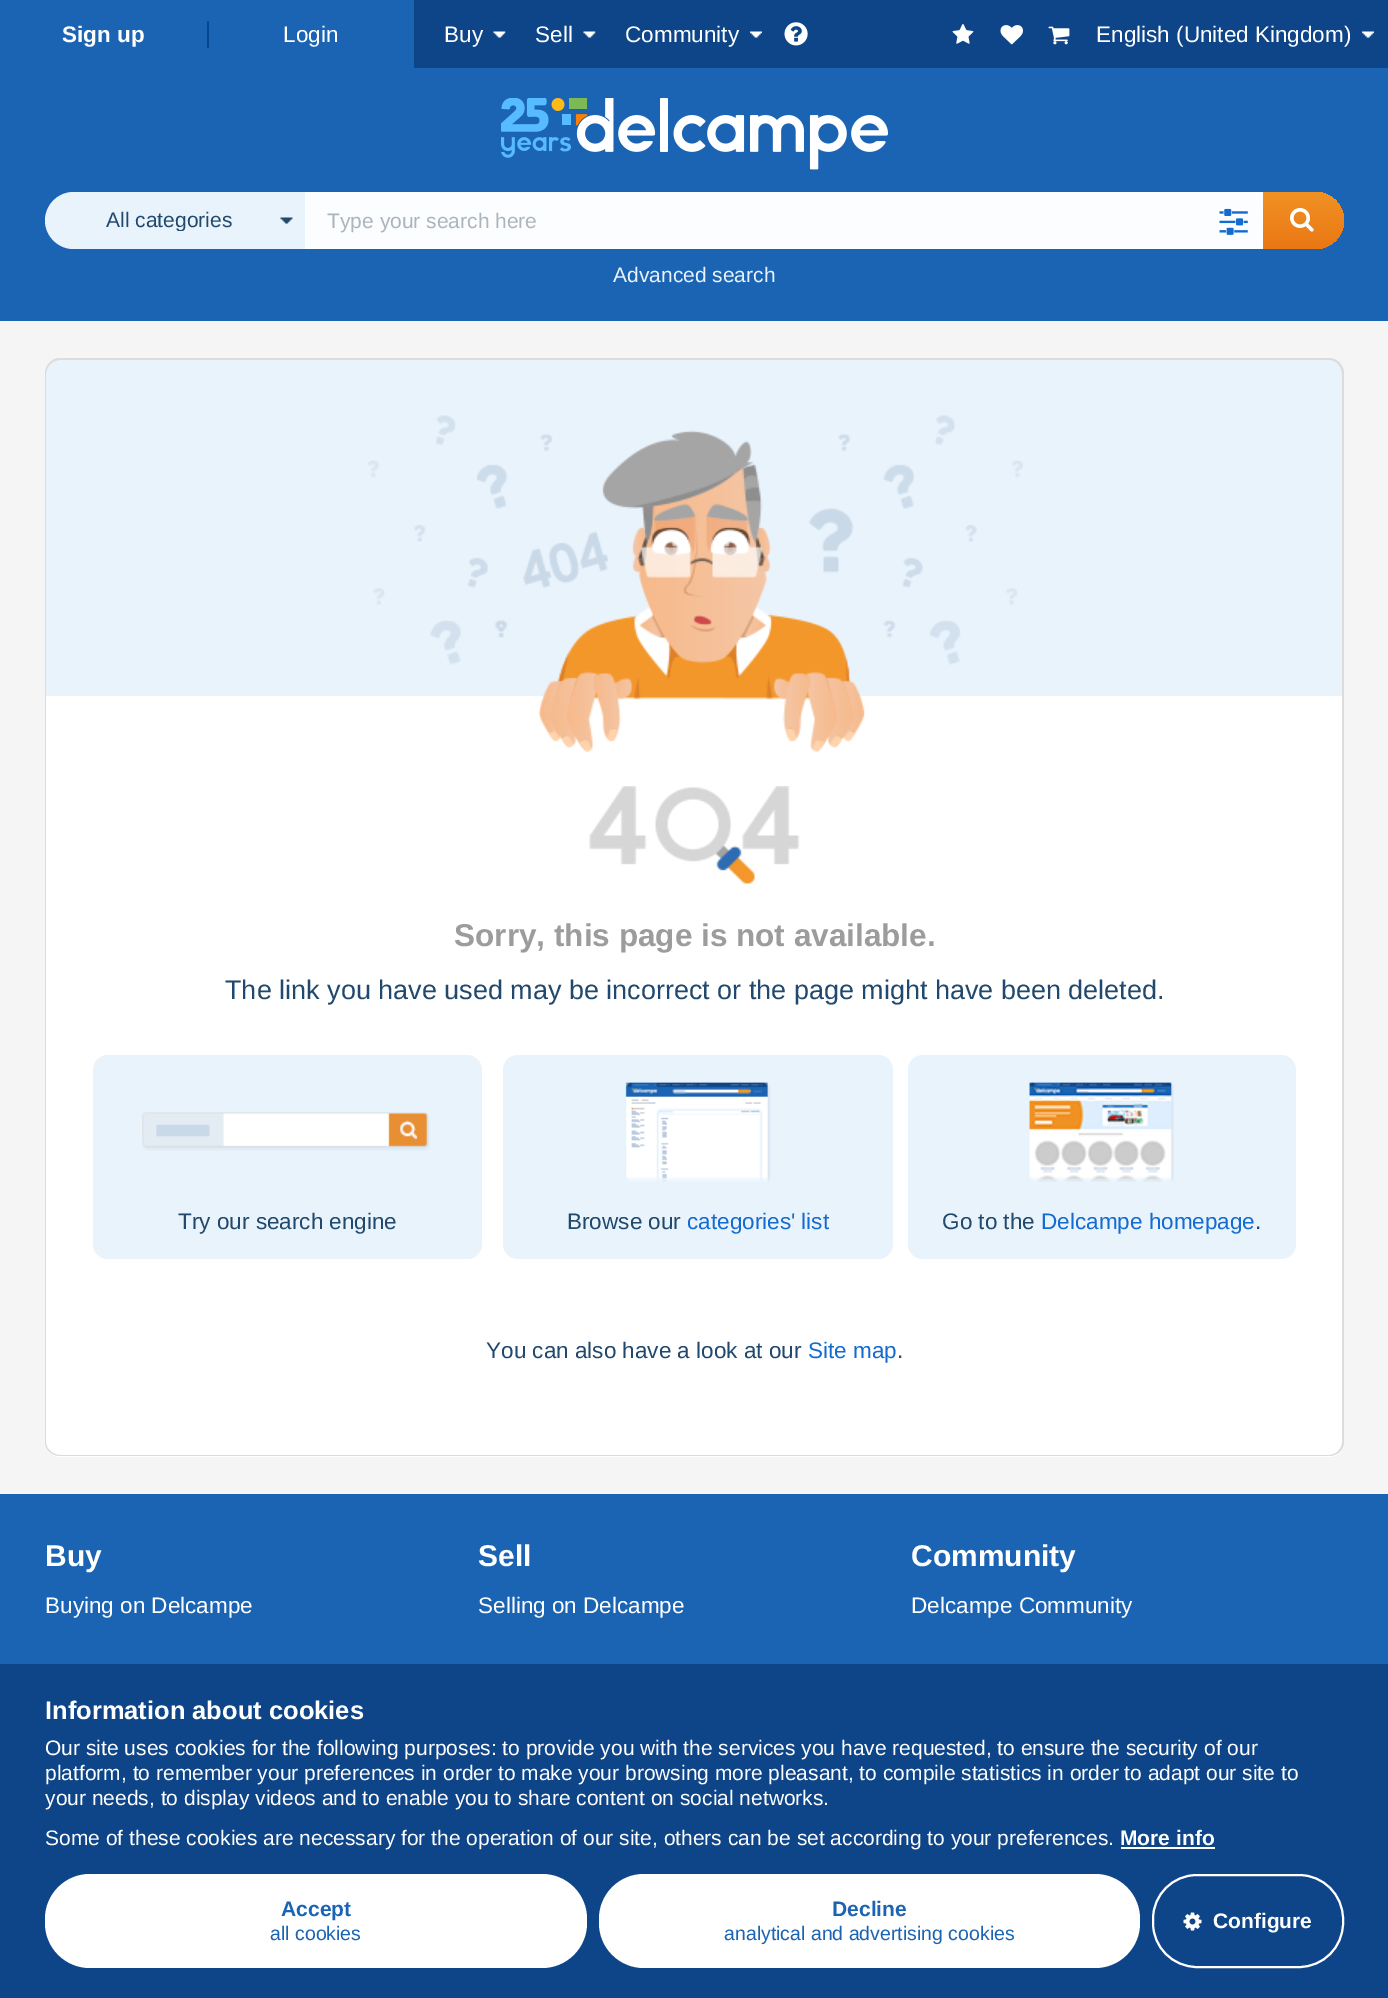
%!PS
<< /PageSize [1388 1998] >> setpagedevice
/rgb { 3 { 255 div 3 1 roll } repeat setrgbcolor } def
/font { [ exch dup neg 0 0 3 -1 roll 0 0 ] selectfont } def
/text { moveto show } def
/roundrect { 5 dict begin { /r /h /w /y /x } { exch def } forall
  x r add y moveto x w add y 2 copy h add r arct x w add y h add x 1 index r arct
  x y h add x y r arct x y 2 copy exch w add exch r arct closepath end } def
/picture { 5 dict begin { /h /w /y /x /name } { exch def } forall
  gsave x y translate w h scale
  w h 8 [w 0 0 h 0 0] name (r) file false 3 colorimage grestore end } def
0 1998 translate 1 -1 scale
4 setmiterlimit
245 245 245 rgb
0 0 1388 1998 rectfill
27 100 179 rgb
0 68 1388 253 rectfill
14 69 136 rgb
414 0 974 68 rectfill
27 100 179 rgb
0 0 414 68 rectfill
5 71 145 rgb
207 21 2 27 rectfill
(img_01.rgb) 493 31 13 7 picture
(img_02.rgb) 583 31 13 7 picture
(img_03.rgb) 750 31 12 7 picture
(img_04.rgb) 784 22 24 24 picture
(img_05.rgb) 952 23 22 21 picture
(img_06.rgb) 1000 25 23 20 picture
(img_07.rgb) 1048 26 22 19 picture
(img_03.rgb) 1362 31 12 7 picture
(img_08.rgb) 501 98 387 72 picture
233 243 252 rgb
73.5 192 moveto 234.5 0 rlineto 0 57 rlineto -234.5 0 rlineto -15.5 0 -28.5 -13 -28.5 -28.5 rcurveto 0 -15.5 13 -28.5 28.5 -28.5 rcurveto closepath fill
(img_09.rgb) 280 217 13 7 picture
gsave 1260 192 moveto 55.5 0 rlineto 15.5 0 28.5 13 28.5 28.5 rcurveto 0 15.5 -13 28.5 -28.5 28.5 rcurveto -55.5 0 rlineto closepath clip newpath
<< /ShadingType 2 /ColorSpace /DeviceRGB /Coords [1302 192 1302 249] /Extend [true true] /Function << /FunctionType 3 /Domain [0 1] /Functions [<< /FunctionType 2 /Domain [0 1] /C0 [0.941 0.573 0.141] /C1 [0.918 0.467 0.078] /N 1 >> << /FunctionType 2 /Domain [0 1] /C0 [0.918 0.467 0.078] /C1 [0.918 0.467 0.078] /N 1 >>] /Bounds [0.99] /Encode [0 1 0 1] >> >> shfill grestore
252 253 255 rgb
305 192 958 57 rectfill
(img_10.rgb) 1219 208 29 27 picture
(img_11.rgb) 1290 208 24 24 picture
233 243 252 rgb
60 359 moveto 1269 0 rlineto 8.5 0 15 6.5 15 15 rcurveto 0 322 rlineto -1299 0 rlineto 0 -322 rlineto 0 -8.5 6.5 -15 15 -15 rcurveto closepath fill
220 220 220 rgb
60 358 moveto 1269 0 rlineto 8 0 15 7 15 16 rcurveto 0 322 rlineto -1299 0 rlineto 0 -322 rlineto 0 -9 7 -16 15 -16 rcurveto closepath 60 360 moveto 1269 0 rlineto 7 0 13 6 13 14 rcurveto 0 322 rlineto -1296 0 rlineto 0 -322 rlineto 0 -8 7 -14 14 -14 rcurveto closepath eofill
255 255 255 rgb
45 696 moveto 1299 0 rlineto 0 746 rlineto 0 8.5 -6.5 15 -15 15 rcurveto -1269 0 rlineto -8.5 0 -15 -6.5 -15 -15 rcurveto closepath fill
220 220 220 rgb
45 696 moveto 1299 0 rlineto 0 746 rlineto 0 8 -7 14 -15 14 rcurveto -1269 0 rlineto -8 0 -15 -6 -15 -14 rcurveto closepath 46 696 moveto 1296 0 rlineto 0 746 rlineto 0 7 -6 13 -13 13 rcurveto -1269 0 rlineto -7 0 -14 -6 -14 -13 rcurveto closepath eofill
(img_12.rgb) 367 415 656 337 picture
(img_13.rgb) 589 786 211 98 picture
233 243 252 rgb
93 1055 389 204 15 roundrect fill
(img_14.rgb) 142 1112 288 39 picture
503 1055 390 204 15 roundrect fill
(img_15.rgb) 625 1082 146 100 picture
908 1055 388 204 15 roundrect fill
(img_16.rgb) 1029 1082 145 100 picture
27 100 179 rgb
0 1494 1388 170 rectfill
14 69 136 rgb
0 1664 1388 334 rectfill
255 255 255 rgb
1121 1847 94 2 rectfill
45 1874 542 94 45 roundrect fill
599 1874 541 94 45 roundrect fill
2 setlinewidth
1153 1875 190 92 44 roundrect stroke
(img_17.rgb) 1183 1912 19 19 picture
/LiberationSans-Bold 22.5 font
(Sign up) 62 42 text
/LiberationSans-Regular 22.5 font
(Login) 283 42 text
(Buy) 444 42 text
(Sell) 535 42 text
(Community) 625 42 text
(English \(United Kingdom\)) 1096 42 text
gsave
68 207 202 24 rectclip
/LiberationSans-Regular 21 font
33 72 109 rgb
(All categories) 106 227 text
grestore
/LiberationSans-Regular 21 font
172 181 188 rgb
(Type your search here) 327 228 text
233 243 252 rgb
(Advanced search) 613 282 text
/LiberationSans-Bold 31.5 font
156 156 156 rgb
(Sorry, this page is not available.) 454 946 text
/LiberationSans-Regular 27 font
33 72 109 rgb
(The link you have used may be incorrect or the page might have been deleted.) 225 999 text
/LiberationSans-Regular 22.5 font
(Try our search engine) 178 1229 text
(Browse our) 567 1229 text
21 108 208 rgb
(categories' list) 687 1229 text
33 72 109 rgb
(Go to the) 942 1229 text
21 108 208 rgb
(Delcampe homepage) 1041 1229 text
33 72 109 rgb
(.) 1255 1229 text
(You can also have a look at our) 486 1358 text
21 108 208 rgb
(Site map) 808 1358 text
33 72 109 rgb
(.) 897 1358 text
/LiberationSans-Bold 30 font
255 255 255 rgb
(Buy) 45 1566 text
/LiberationSans-Regular 22.5 font
(Buying on Delcampe) 45 1613 text
/LiberationSans-Bold 30 font
(Sell) 478 1566 text
/LiberationSans-Regular 22.5 font
(Selling on Delcampe) 478 1613 text
/LiberationSans-Bold 30 font
(Community) 911 1566 text
/LiberationSans-Regular 22.5 font
(Delcampe Community) 911 1613 text
/LiberationSans-Bold 25.5 font
(Information about cookies) 45 1719 text
/LiberationSans-Regular 21 font
(Our site uses cookies for the following purposes: to provide you with the services you have requested, to ensure the security of our) 45 1755 text
(platform, to remember your preferences in order to make your browsing more pleasant, to compile statistics in order to adapt our site to) 45 1780 text
(your needs, to display videos and to enable you to share content on social networks.) 45 1805 text
(Some of these cookies are necessary for the operation of our site, others can be set according to your preferences.) 45 1845 text
/LiberationSans-Bold 21 font
(More info) 1120 1845 text
27 100 179 rgb
(Accept) 281 1916 text
/LiberationSans-Regular 19.5 font
(all cookies) 270 1940 text
/LiberationSans-Bold 21 font
(Decline) 832 1916 text
/LiberationSans-Regular 19.5 font
(analytical and advertising cookies) 724 1940 text
/LiberationSans-Bold 21 font
255 255 255 rgb
(Configure) 1213 1928 text
showpage
